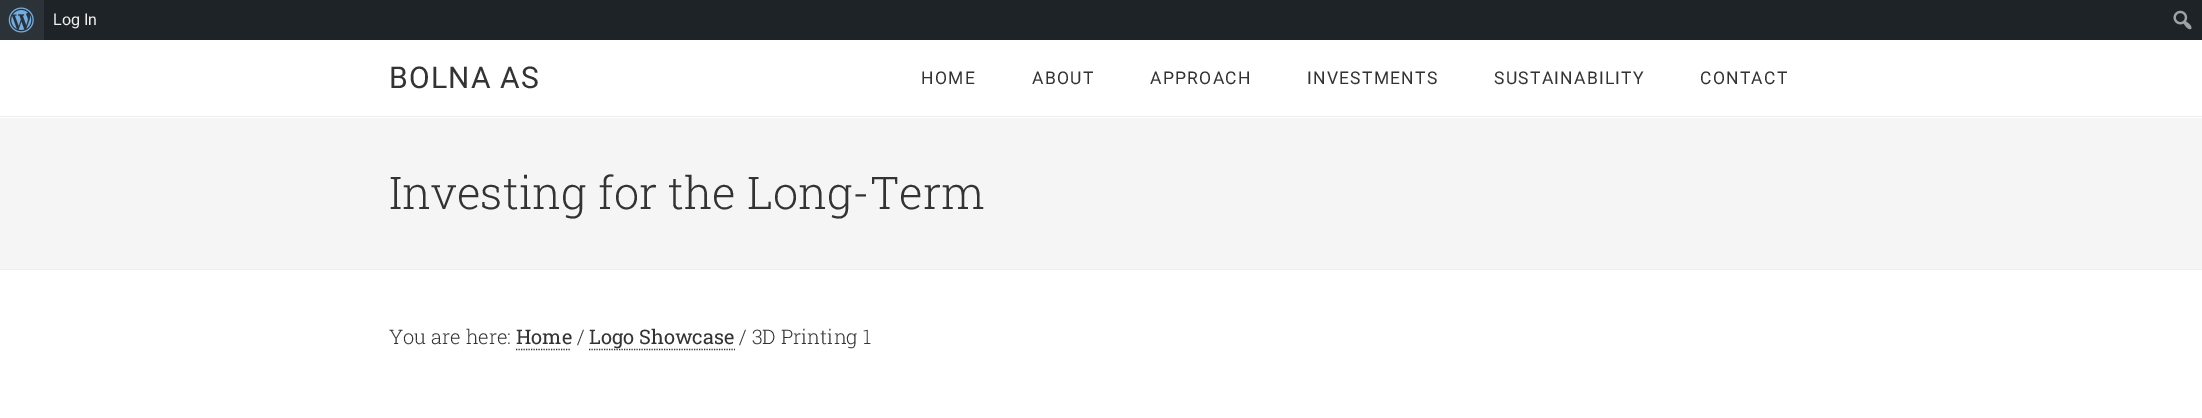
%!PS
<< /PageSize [2202 418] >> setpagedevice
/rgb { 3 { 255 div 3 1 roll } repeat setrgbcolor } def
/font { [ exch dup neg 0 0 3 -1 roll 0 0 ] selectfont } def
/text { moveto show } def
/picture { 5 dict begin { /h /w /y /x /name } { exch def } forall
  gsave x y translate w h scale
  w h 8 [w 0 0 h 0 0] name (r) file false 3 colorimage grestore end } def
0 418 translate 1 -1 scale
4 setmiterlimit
255 255 255 rgb
0 0 2202 418 rectfill
29 35 39 rgb
44 0 2158 40 rectfill
44 51 56 rgb
0 0 44 40 rectfill
(img_01.rgb) 8 7 26 26 picture
(img_02.rgb) 2173 10 19 20 picture
238 238 238 rgb
0 116 2202 1 rectfill
245 245 245 rgb
0 118 2202 151 rectfill
238 238 238 rgb
0 269 2202 1 rectfill
51 51 51 rgb
1.2 setlinewidth
[1.25 1.25] 0 setdash
516 349.5 moveto 55 0 rlineto stroke
589 349.5 moveto 146 0 rlineto stroke
/Roboto-Regular 16 font
240 240 241 rgb
(Log In) 53 25 text
/Roboto-Regular 30 font
51 51 51 rgb
389 88 moveto 1.25 0 (BOLNA AS) ashow
/Roboto-Regular 17.5 font
921 84 moveto 1.25 0 (HOME) ashow
1032 84 moveto 1.25 0 (ABOUT) ashow
1150 84 moveto 1.25 0 (APPROACH) ashow
1307 84 moveto 1.25 0 (INVESTMENTS) ashow
1494 84 moveto 1.25 0 (SUSTAINABILITY) ashow
1700 84 moveto 1.25 0 (CONTACT) ashow
/RobotoSlab-Light 45 font
(Investing for the Long-Term) 389 209 text
/RobotoSlab-Light 20 font
(You are here:) 389 344 text
/RobotoSlab-Regular 20 font
(Home) 516 344 text
/RobotoSlab-Light 20 font
(/) 577 344 text
/RobotoSlab-Regular 20 font
(Logo Showcase) 589 344 text
/RobotoSlab-Light 20 font
(/ 3D Printing 1) 739 344 text
showpage
